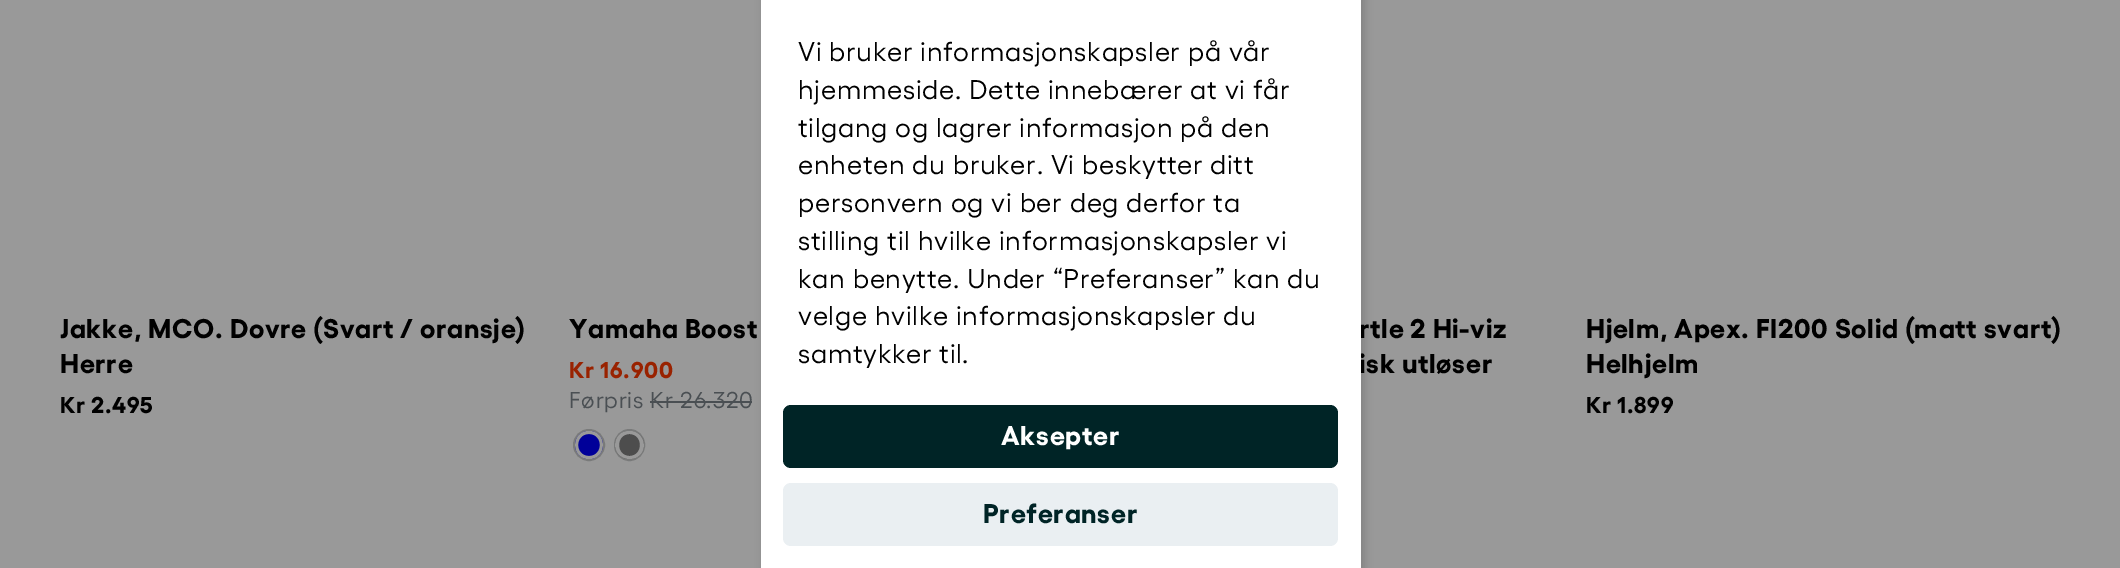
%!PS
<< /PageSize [2120 568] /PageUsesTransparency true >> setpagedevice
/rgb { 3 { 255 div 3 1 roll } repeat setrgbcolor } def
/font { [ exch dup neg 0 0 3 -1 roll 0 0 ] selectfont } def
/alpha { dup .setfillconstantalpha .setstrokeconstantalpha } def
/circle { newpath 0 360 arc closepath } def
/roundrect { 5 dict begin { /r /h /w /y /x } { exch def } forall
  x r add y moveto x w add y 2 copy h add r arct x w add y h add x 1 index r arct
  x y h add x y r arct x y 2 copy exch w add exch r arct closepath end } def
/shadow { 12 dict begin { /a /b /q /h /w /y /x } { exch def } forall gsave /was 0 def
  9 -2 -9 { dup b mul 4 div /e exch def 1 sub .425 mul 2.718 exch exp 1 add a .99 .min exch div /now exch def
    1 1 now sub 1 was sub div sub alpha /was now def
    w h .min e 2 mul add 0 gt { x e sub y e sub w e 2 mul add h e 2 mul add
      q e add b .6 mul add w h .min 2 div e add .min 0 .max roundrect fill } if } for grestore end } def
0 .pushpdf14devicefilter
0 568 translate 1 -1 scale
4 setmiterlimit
153 153 153 rgb
0 0 2120 568 rectfill
74 79 83 rgb
650 401 102 2 rectfill
0 0 0 rgb
764 -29 600 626 15 4.5 0.15 shadow
121 122 122 rgb
2 setlinewidth
589 445 15 circle stroke
0 0 153 rgb
589 445 14 circle fill
153 153 153 rgb
589 431 moveto -18.5 0 -18.5 28 0 28 rcurveto 18.5 0 18.5 -28 0 -28 rcurveto closepath 589 434 moveto -14.5 0 -14.5 22 0 22 rcurveto 14.5 0 14.5 -22 0 -22 rcurveto closepath eofill
121 122 122 rgb
615 430 29 30 14.5 roundrect stroke
77 77 77 rgb
615 431 29 28 14 roundrect fill
153 153 153 rgb
629 431 moveto -17.5 0 -19.5 26.5 0 28 rcurveto 3 0 6.5 -0.5 9 -2.5 rcurveto 11 -7.5 5.5 -25.5 -8 -25.5 rcurveto closepath 629.5 434 moveto -14 0 -14 22 0 22 rcurveto 14 0 14 -22 0 -22 rcurveto closepath eofill
/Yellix-Bold 27 font
0 0 0 rgb
60 338 moveto 0.7 0 (Jakke, MCO. Dovre \(Svart / oransje\)) ashow
60 373 moveto 0.7 0 (Herre) ashow
/Yellix-Bold 23 font
60 413 moveto 0.7 0 (Kr 2.495) ashow
/Yellix-Bold 27 font
569 338 moveto 0.7 0 (Yamaha Boost) ashow
/Yellix-Bold 23 font
153 34 0 rgb
569 378 moveto 0.7 0 (Kr 16.900) ashow
/Yellix-Regular 23 font
74 79 83 rgb
569 408 moveto 0.7 0 (Førpris Kr 26.320) ashow
/Yellix-Bold 27 font
0 0 0 rgb
1359 338 moveto 0.7 0 (rtle 2 Hi-viz) ashow
1359 373 moveto 0.7 0 (isk utløser) ashow
255 255 255 rgb
761 0 600 568 rectfill
234 239 242 rgb
783 483 555 63 8 roundrect fill
0 36 38 rgb
983 523 moveto 0.7 0 (Preferanser) ashow
783 405 555 63 8 roundrect fill
255 255 255 rgb
1001 445 moveto 0.7 0 (Aksepter) ashow
/Yellix-Regular 27 font
0 0 0 rgb
798 363 moveto 0.7 0 (samtykker til.) ashow
798 325 moveto 0.7 0 (velge hvilke informasjonskapsler du) ashow
798 288 moveto 0.7 0 (kan benytte. Under “Preferanser” kan du) ashow
798 250 moveto 0.7 0 (stilling til hvilke informasjonskapsler vi) ashow
798 212 moveto 0.7 0 (personvern og vi ber deg derfor ta) ashow
798 174 moveto 0.7 0 (enheten du bruker. Vi beskytter ditt) ashow
798 137 moveto 0.7 0 (tilgang og lagrer informasjon på den) ashow
798 99 moveto 0.7 0 (hjemmeside. Dette innebærer at vi får) ashow
798 61 moveto 0.7 0 (Vi bruker informasjonskapsler på vår) ashow
/Yellix-Bold 27 font
1586 338 moveto 0.7 0 (Hjelm, Apex. FI200 Solid \(matt svart\)) ashow
1586 373 moveto 0.7 0 (Helhjelm) ashow
/Yellix-Bold 23 font
1586 413 moveto 0.7 0 (Kr 1.899) ashow
.poppdf14devicefilter showpage
